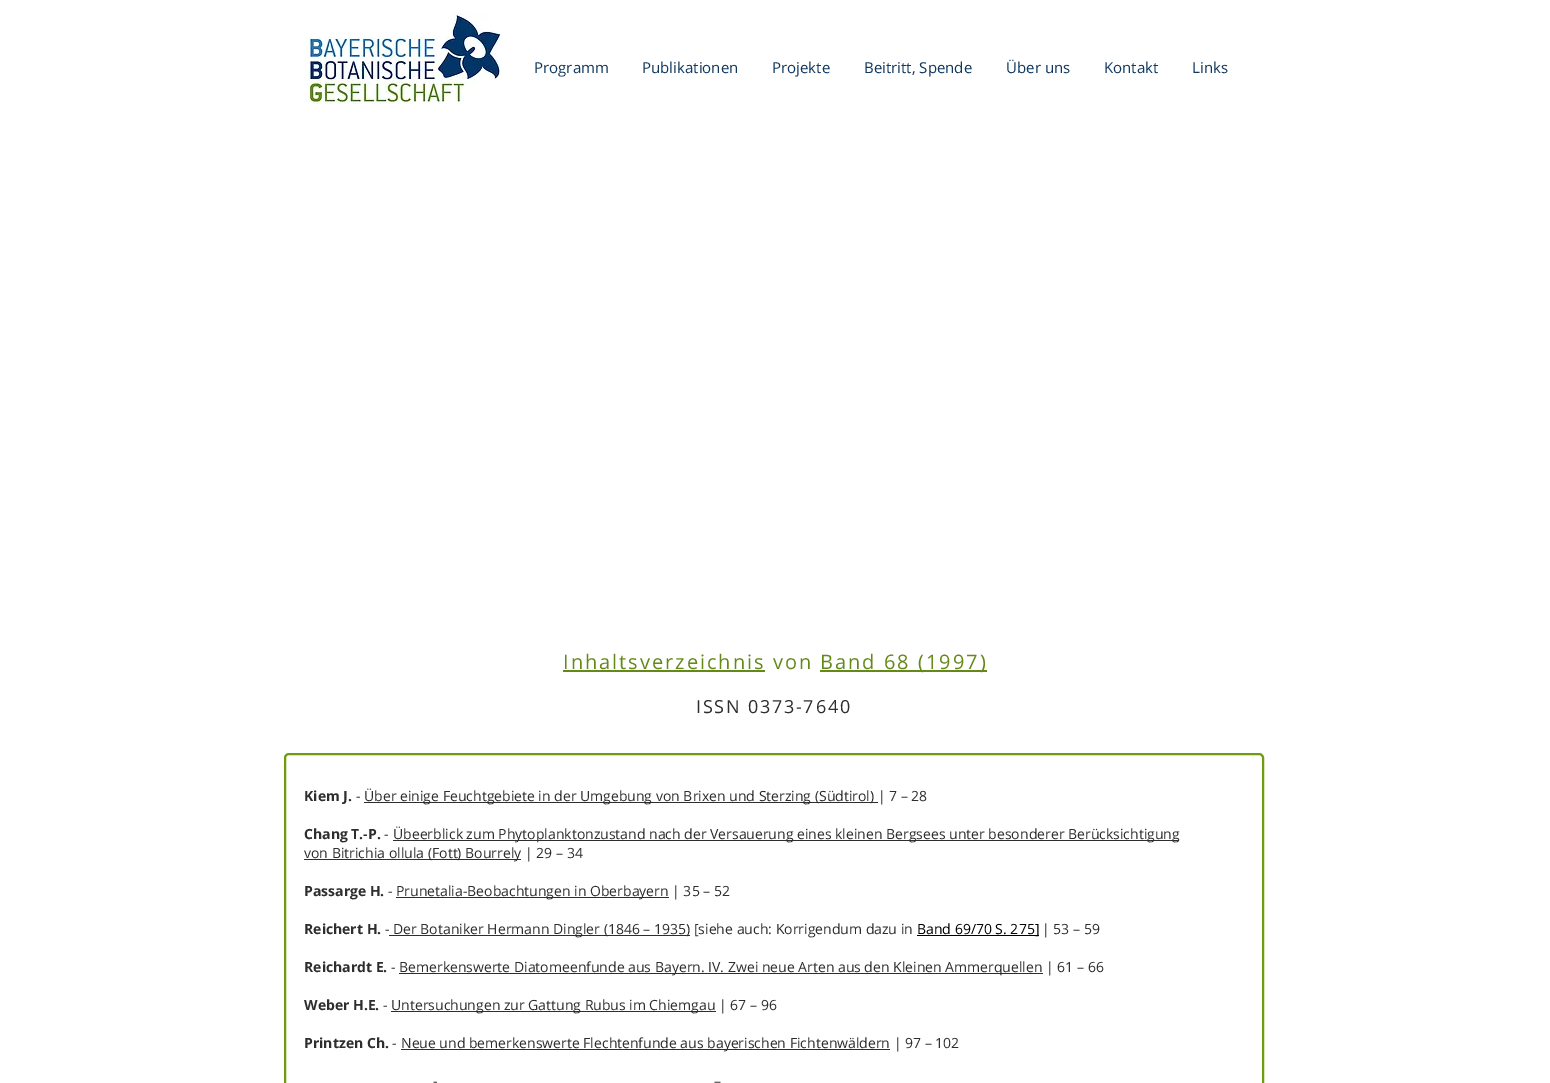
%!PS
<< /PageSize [1550 1083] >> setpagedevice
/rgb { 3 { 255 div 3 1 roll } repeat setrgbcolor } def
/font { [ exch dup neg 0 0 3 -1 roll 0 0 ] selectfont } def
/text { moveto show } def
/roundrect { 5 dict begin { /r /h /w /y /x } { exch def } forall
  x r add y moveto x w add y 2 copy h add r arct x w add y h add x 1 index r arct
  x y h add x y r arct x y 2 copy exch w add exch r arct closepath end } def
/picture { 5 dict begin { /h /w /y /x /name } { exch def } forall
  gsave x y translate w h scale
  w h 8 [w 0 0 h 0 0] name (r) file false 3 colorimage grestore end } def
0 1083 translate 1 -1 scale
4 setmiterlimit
255 255 255 rgb
0 0 1550 1083 rectfill
(img_01.rgb) 305 13 197 91 picture
100 137 24 rgb
563 670 202 2 rectfill
820 670 167 2 rectfill
109 156 12 rgb
2 setlinewidth
285 754 978 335 4 roundrect stroke
47 46 46 rgb
364 802 514 1 rectfill
393 840 786 1 rectfill
304 859 217 1 rectfill
396 897 273 1 rectfill
389 935 301 1 rectfill
0 0 0 rgb
917 935 122 1 rectfill
47 46 46 rgb
399 973 644 1 rectfill
391 1011 325 1 rectfill
401 1049 489 1 rectfill
/OpenSans-Regular 15 font
16 56 95 rgb
(Programm) 534 73 text
(Publikationen) 642 73 text
(Projekte) 772 73 text
(Beitritt, Spende) 864 73 text
(Über uns) 1006 73 text
(Kontakt) 1104 73 text
(Links) 1192 73 text
/OpenSans-Regular 20 font
100 137 24 rgb
563 669 moveto 2 0 (Inhaltsverzeichnis von) ashow
820 669 moveto 2 0 (Band 68 \(1997\)) ashow
/OpenSans-Regular 18 font
47 46 46 rgb
696 713 moveto 1.75 0 (ISSN 0373-7640) ashow
/OpenSans-Bold 14 font
(Kiem J.) 304 801 text
/OpenSans-Regular 14 font
(-) 356 801 text
(Über einige Feuchtgebiete in der Umgebung von Brixen und Sterzing \(Südtirol\) | 7 – 28) 364 801 text
/OpenSans-Bold 14 font
(Chang T.-P.) 304 839 text
/OpenSans-Regular 14 font
(-) 384 839 text
(Übeerblick zum Phytoplanktonzustand nach der Versauerung eines kleinen Bergsees unter besonderer Berücksichtigung) 393 839 text
(von Bitrichia ollula \(Fott\) Bourrely | 29 – 34) 304 858 text
/OpenSans-Bold 14 font
(Passarge H.) 304 896 text
/OpenSans-Regular 14 font
(-) 388 896 text
(Prunetalia-Beobachtungen in Oberbayern | 35 – 52) 396 896 text
/OpenSans-Bold 14 font
(Reichert H.) 304 934 text
/OpenSans-Regular 14 font
(-) 385 934 text
(Der Botaniker Hermann Dingler \(1846 – 1935\) [siehe auch: Korrigendum dazu in) 393 934 text
0 0 0 rgb
(Band 69/70 S. 275]) 917 934 text
47 46 46 rgb
(| 53 – 59) 1042 934 text
/OpenSans-Bold 14 font
(Reichardt E.) 304 972 text
/OpenSans-Regular 14 font
(-) 391 972 text
(Bemerkenswerte Diatomeenfunde aus Bayern. IV. Zwei neue Arten aus den Kleinen Ammerquellen | 61 – 66) 399 972 text
/OpenSans-Bold 14 font
(Weber H.E.) 304 1010 text
/OpenSans-Regular 14 font
(-) 383 1010 text
(Untersuchungen zur Gattung Rubus im Chiemgau | 67 – 96) 391 1010 text
/OpenSans-Bold 14 font
(Printzen Ch.) 304 1048 text
/OpenSans-Regular 14 font
(-) 392 1048 text
(Neue und bemerkenswerte Flechtenfunde aus bayerischen Fichtenwäldern | 97 – 102) 401 1048 text
(-) 433 1086 text
(–) 714 1086 text
showpage
